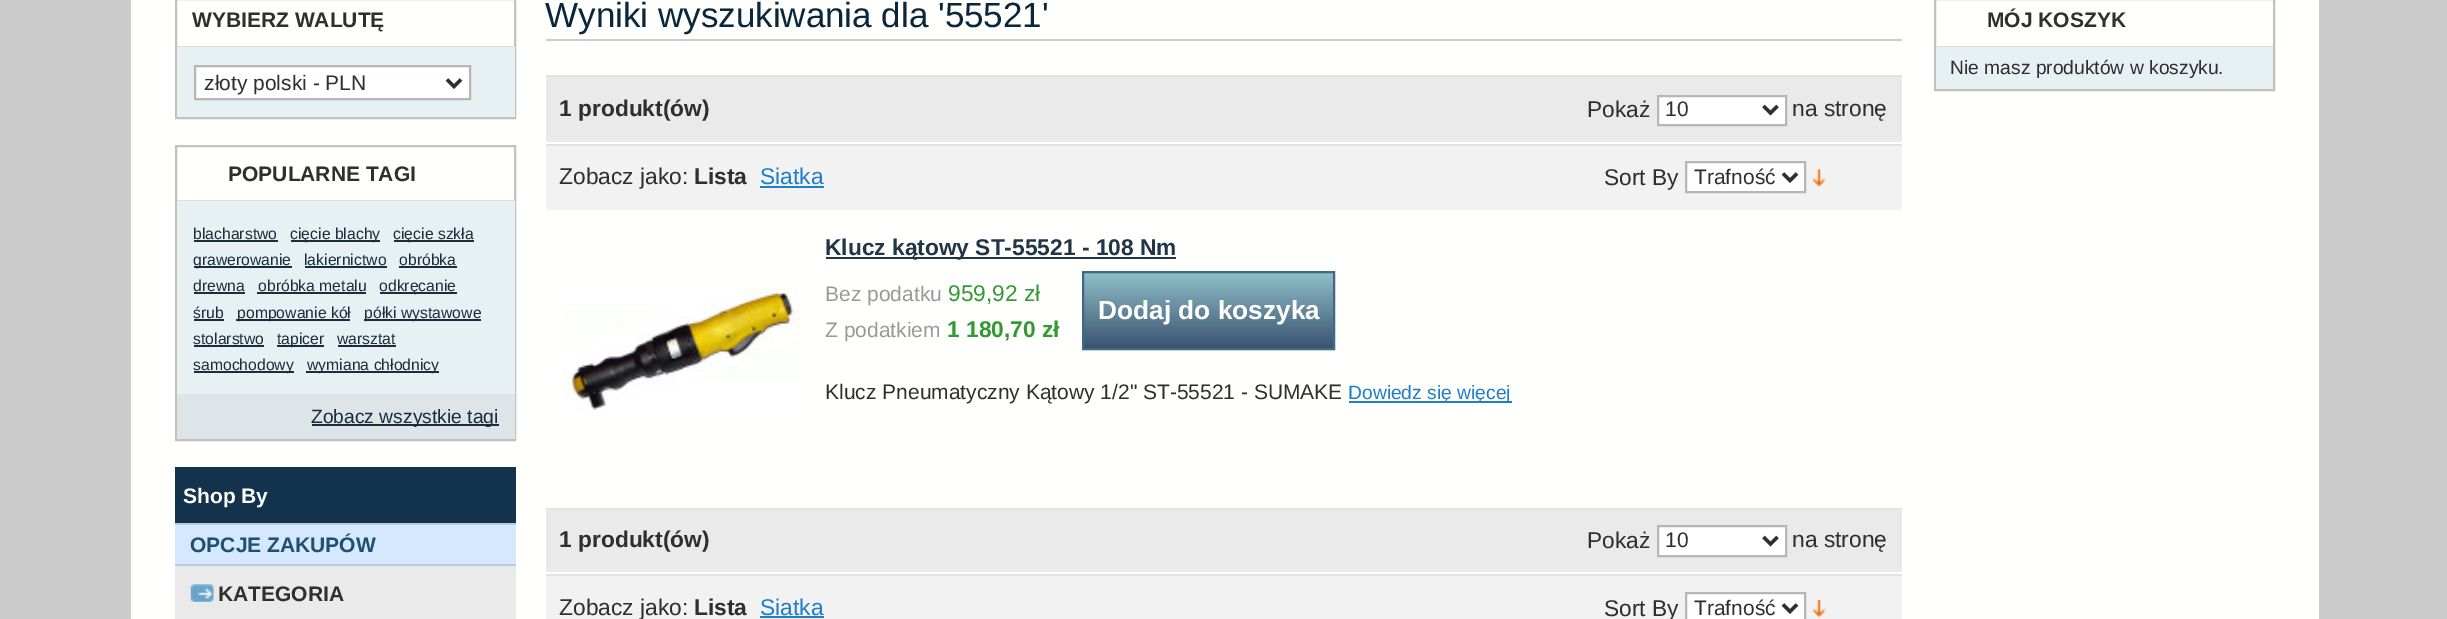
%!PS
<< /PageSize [2447 619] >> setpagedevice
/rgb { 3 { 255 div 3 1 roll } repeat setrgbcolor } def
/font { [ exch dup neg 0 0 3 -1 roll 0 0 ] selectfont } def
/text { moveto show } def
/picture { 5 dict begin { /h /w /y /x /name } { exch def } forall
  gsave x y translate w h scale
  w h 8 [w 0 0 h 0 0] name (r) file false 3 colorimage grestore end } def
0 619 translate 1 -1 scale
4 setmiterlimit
204 204 204 rgb
0 0 2447 619 rectfill
255 255 254 rgb
131 0 2188 619 rectfill
196 193 188 rgb
2 setlinewidth
176 -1 339 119 rectstroke
221 221 221 rgb
177 46 338 1 rectfill
231 241 244 rgb
177 47 338 70 rectfill
255 255 255 rgb
195 66 moveto 275 0 rlineto 0 33 rlineto -275 0 rlineto closepath gsave fill grestore
182 182 182 rgb
stroke
47 47 47 rgb
3.5 setlinewidth
447 79.5 moveto 7 7 rlineto 7 -7 rlineto stroke
196 193 188 rgb
2 setlinewidth
176 146 339 294 rectstroke
221 221 221 rgb
177 200 338 1 rectfill
231 241 244 rgb
177 201 338 193 rectfill
27 45 59 rgb
194 240 84 2 rectfill
291 240 89 2 rectfill
394 240 80 2 rectfill
194 266 98 2 rectfill
305 266 82 2 rectfill
399 266 58 2 rectfill
194 292 51 2 rectfill
257 292 109 2 rectfill
380 292 77 2 rectfill
194 319 30 2 rectfill
236 319 114 2 rectfill
364 319 117 2 rectfill
194 345 70 2 rectfill
277 345 47 2 rectfill
338 345 58 2 rectfill
194 371 100 2 rectfill
306 371 133 2 rectfill
222 229 232 rgb
177 394 338 45 rectfill
27 45 59 rgb
312 424 187 2 rectfill
19 51 77 rgb
175 467 341 56 rectfill
234 234 234 rgb
175 566 341 53 rectfill
213 232 255 rgb
175 525 341 39 rectfill
185 204 221 rgb
175 523 341 2 rectfill
175 564 341 2 rectfill
(img_01.rgb) 190 584 24 18 picture
204 204 204 rgb
546 39 1356 2 rectfill
234 234 234 rgb
546 77 1356 65 rectfill
226 226 226 rgb
546 75 1356 2 rectfill
255 255 255 rgb
1658 96 moveto 128 0 rlineto 0 29 rlineto -128 0 rlineto closepath gsave fill grestore
182 182 182 rgb
stroke
47 47 47 rgb
3.5 setlinewidth
1763.5 106 moveto 7 7 rlineto 7 -7 rlineto stroke
242 242 242 rgb
546 146 1356 64 rectfill
226 226 226 rgb
546 144 1356 2 rectfill
30 126 200 rgb
760 186 64 2 rectfill
255 255 255 rgb
1686 162 moveto 119 0 rlineto 0 30 rlineto -119 0 rlineto closepath gsave fill grestore
182 182 182 rgb
2 setlinewidth
stroke
47 47 47 rgb
3.5 setlinewidth
1783 173.5 moveto 7 7 rlineto 7 -7 rlineto stroke
(img_02.rgb) 1813 169 13 18 picture
(img_03.rgb) 563 288 237 126 picture
32 53 72 rgb
826 257 350 2 rectfill
gsave 1084 273 moveto 249 0 rlineto 0 75 rlineto -249 0 rlineto closepath clip newpath
<< /ShadingType 2 /ColorSpace /DeviceRGB /Coords [1208 271 1208 350] /Extend [true true] /Function << /FunctionType 2 /Domain [0 1] /C0 [0.569 0.757 0.796] /C1 [0.22 0.314 0.431] /N 1 >> >> shfill grestore
64 106 131 rgb
2 setlinewidth
1083 272 251 77 rectstroke
30 126 200 rgb
1349 401 163 2 rectfill
234 234 234 rgb
546 510 1356 62 rectfill
226 226 226 rgb
546 508 1356 2 rectfill
255 255 255 rgb
1658 526 moveto 128 0 rlineto 0 30 rlineto -128 0 rlineto closepath gsave fill grestore
182 182 182 rgb
stroke
47 47 47 rgb
3.5 setlinewidth
1763.5 537 moveto 7 7 rlineto 7 -7 rlineto stroke
242 242 242 rgb
546 576 1356 43 rectfill
226 226 226 rgb
546 574 1356 2 rectfill
30 126 200 rgb
760 616 64 2 rectfill
255 255 255 rgb
1686 593 moveto 119 0 rlineto 0 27 rlineto -119 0 rlineto closepath gsave fill grestore
182 182 182 rgb
2 setlinewidth
stroke
47 47 47 rgb
3.5 setlinewidth
1783 604.5 moveto 7 7 rlineto 7 -7 rlineto stroke
(img_04.rgb) 1813 600 13 18 picture
196 193 188 rgb
2 setlinewidth
1935 -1 339 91 rectstroke
221 221 221 rgb
1936 46 337 1 rectfill
231 241 244 rgb
1936 47 337 42 rectfill
/LiberationSans-Bold 21 font
47 47 47 rgb
(WYBIERZ WALUTĘ) 192 27 text
/LiberationSans-Regular 21 font
(złoty polski - PLN) 204 90 text
/LiberationSans-Bold 21 font
(POPULARNE TAGI) 228 181 text
/LiberationSans-Regular 15.75 font
27 45 59 rgb
(blacharstwo) 193 239 text
(cięcie blachy) 290 239 text
(cięcie szkła) 393 239 text
(grawerowanie) 193 265 text
(lakiernictwo) 304 265 text
(obróbka) 399 265 text
(drewna) 193 291 text
(obróbka metalu) 258 291 text
(odkręcanie) 379 291 text
(śrub) 193 318 text
(pompowanie kół) 237 318 text
(półki wystawowe) 364 318 text
(stolarstwo) 193 344 text
(tapicer) 277 344 text
(warsztat) 337 344 text
(samochodowy) 193 370 text
(wymiana chłodnicy) 307 370 text
/LiberationSans-Regular 19.25 font
(Zobacz wszystkie tagi) 311 423 text
/LiberationSans-Bold 21 font
255 255 255 rgb
(Shop By) 183 503 text
31 80 112 rgb
(OPCJE ZAKUPÓW) 190 552 text
47 47 47 rgb
(KATEGORIA) 218 601 text
/LiberationSans-Regular 35 font
10 38 60 rgb
(Wyniki wyszukiwania dla '55521') 545 27 text
/LiberationSans-Bold 22.75 font
47 47 47 rgb
(1 produkt\(ów\)) 559 116 text
/LiberationSans-Regular 22.75 font
(Pokaż) 1587 117 text
/LiberationSans-Regular 21 font
(10) 1665 116 text
/LiberationSans-Regular 22.75 font
(na stronę) 1792 116 text
(Zobacz jako:) 559 184 text
/LiberationSans-Bold 22.75 font
(Lista) 694 184 text
/LiberationSans-Regular 22.75 font
30 126 200 rgb
(Siatka) 760 184 text
47 47 47 rgb
(Sort By) 1604 185 text
/LiberationSans-Regular 21 font
(Trafność) 1694 184 text
/LiberationSans-Bold 22.75 font
32 53 72 rgb
(Klucz kątowy ST-55521 - 108 Nm) 825 255 text
/LiberationSans-Regular 21 font
153 153 153 rgb
(Bez podatku) 825 301 text
/LiberationSans-Regular 22.75 font
51 153 51 rgb
(959,92 zł) 948 301 text
/LiberationSans-Regular 21 font
153 153 153 rgb
(Z podatkiem) 825 337 text
/LiberationSans-Bold 22.75 font
51 153 51 rgb
(1 180,70 zł) 947 337 text
/LiberationSans-Bold 26.25 font
255 255 255 rgb
(Dodaj do koszyka) 1098 319 text
/LiberationSans-Regular 21 font
47 47 47 rgb
(Klucz Pneumatyczny Kątowy 1/2" ST-55521 - SUMAKE) 825 399 text
/LiberationSans-Regular 19.25 font
30 126 200 rgb
(Dowiedz się więcej) 1348 399 text
/LiberationSans-Bold 22.75 font
47 47 47 rgb
(1 produkt\(ów\)) 559 547 text
/LiberationSans-Regular 22.75 font
(Pokaż) 1587 548 text
/LiberationSans-Regular 21 font
(10) 1665 547 text
/LiberationSans-Regular 22.75 font
(na stronę) 1792 547 text
(Zobacz jako:) 559 615 text
/LiberationSans-Bold 22.75 font
(Lista) 694 615 text
/LiberationSans-Regular 22.75 font
30 126 200 rgb
(Siatka) 760 615 text
47 47 47 rgb
(Sort By) 1604 616 text
/LiberationSans-Regular 21 font
(Trafność) 1694 615 text
/LiberationSans-Bold 21 font
(MÓJ KOSZYK) 1987 27 text
/LiberationSans-Regular 19.25 font
(Nie masz produktów w koszyku.) 1950 74 text
showpage
